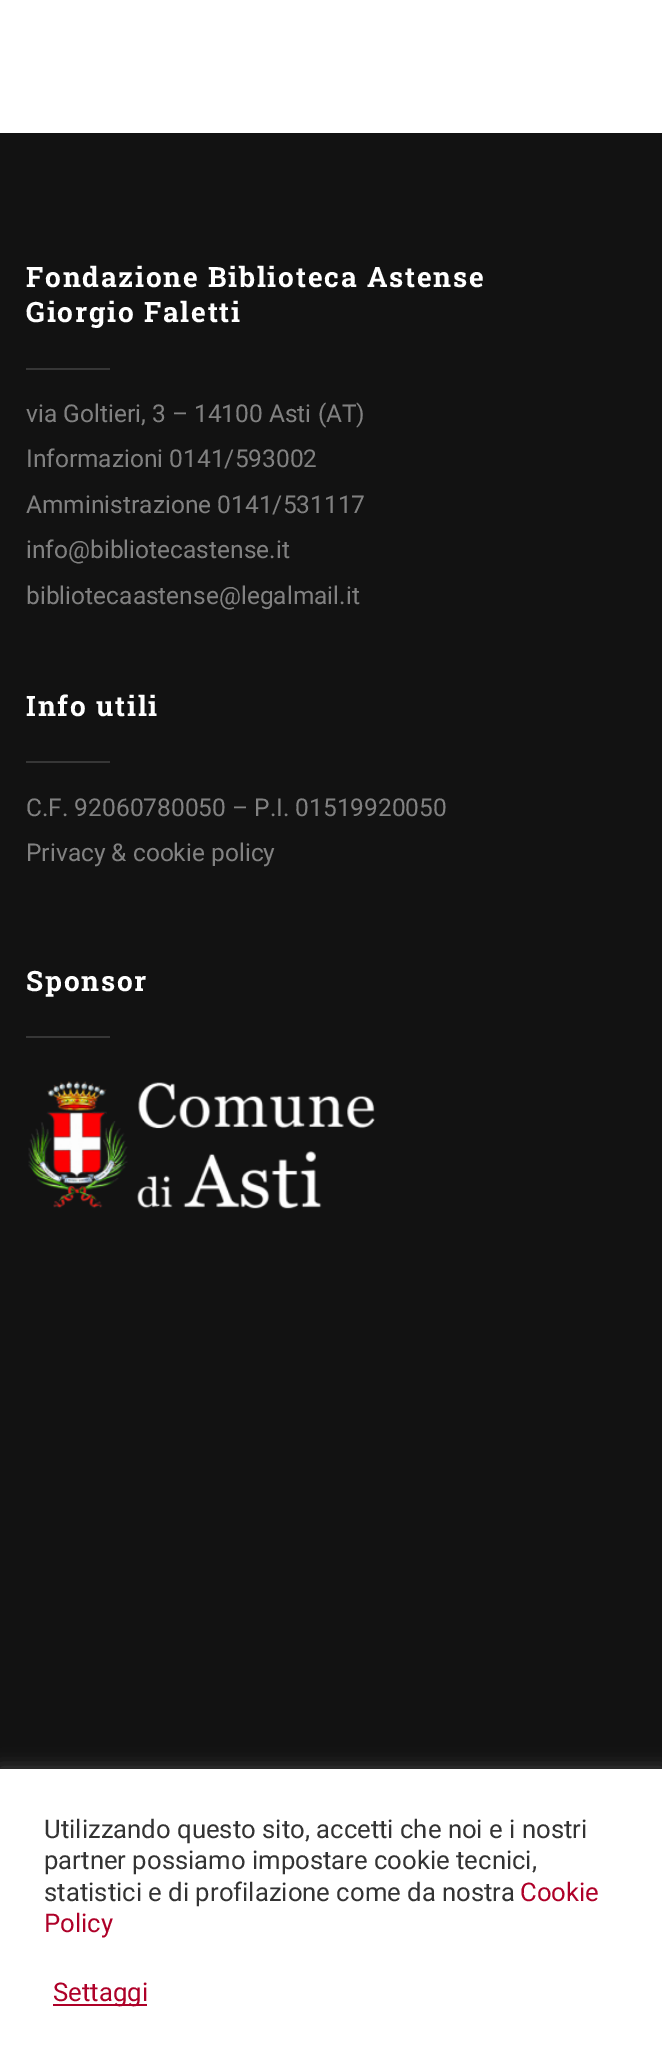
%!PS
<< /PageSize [662 2071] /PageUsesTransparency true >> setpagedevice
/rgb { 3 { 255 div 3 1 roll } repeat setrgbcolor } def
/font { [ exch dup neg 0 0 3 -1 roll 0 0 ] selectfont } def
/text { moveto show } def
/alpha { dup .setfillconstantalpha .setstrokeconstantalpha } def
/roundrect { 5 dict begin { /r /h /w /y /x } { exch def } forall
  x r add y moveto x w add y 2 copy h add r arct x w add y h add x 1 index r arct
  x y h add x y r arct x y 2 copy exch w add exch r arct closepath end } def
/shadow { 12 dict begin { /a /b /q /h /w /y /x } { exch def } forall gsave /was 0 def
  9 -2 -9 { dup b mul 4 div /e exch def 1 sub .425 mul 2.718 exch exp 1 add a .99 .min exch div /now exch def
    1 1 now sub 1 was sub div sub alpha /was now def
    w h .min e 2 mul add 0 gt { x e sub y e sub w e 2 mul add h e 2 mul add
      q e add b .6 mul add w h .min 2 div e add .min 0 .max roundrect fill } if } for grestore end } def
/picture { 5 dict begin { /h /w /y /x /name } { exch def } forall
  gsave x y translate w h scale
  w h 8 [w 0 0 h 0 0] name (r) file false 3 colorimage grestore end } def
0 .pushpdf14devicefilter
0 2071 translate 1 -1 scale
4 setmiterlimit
255 255 255 rgb
0 0 662 2071 rectfill
18 18 18 rgb
0 133 662 1636 rectfill
54 54 54 rgb
26 368 84 2 rectfill
26 761 84 2 rectfill
26 1036 84 2 rectfill
(img_01.rgb) 28 1081 347 128 picture
172 171 171 rgb
0 1768 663 302 0 9 0.3 shadow
255 255 255 rgb
0 1769 662 302 rectfill
174 0 40 rgb
53 2004 94 2 rectfill
/RobotoSlab-Bold 28 font
255 255 255 rgb
26 287 moveto 1.75 0 (Fondazione Biblioteca Astense) ashow
26 322 moveto 1.75 0 (Giorgio Faletti) ashow
/Roboto-Regular 24.5 font
129 129 129 rgb
(via Goltieri, 3 – 14100 Asti \(AT\)) 26 422 text
(Informazioni 0141/593002) 26 467 text
(Amministrazione 0141/531117) 26 513 text
(info@bibliotecastense.it) 26 558 text
(bibliotecaastense@legalmail.it) 26 604 text
/RobotoSlab-Bold 28 font
255 255 255 rgb
26 716 moveto 1.75 0 (Info utili) ashow
/Roboto-Regular 24.5 font
129 129 129 rgb
(C.F. 92060780050 – P.I. 01519920050) 26 816 text
(Privacy & cookie policy) 26 861 text
/RobotoSlab-Bold 28 font
255 255 255 rgb
26 991 moveto 1.75 0 (Sponsor) ashow
/Roboto-Regular 25.7 font
51 51 51 rgb
(Utilizzando questo sito, accetti che noi e i nostri) 44 1838 text
(partner possiamo impostare cookie tecnici,) 44 1869 text
(statistici e di profilazione come da nostra) 44 1901 text
174 0 40 rgb
(Cookie) 520 1901 text
(Policy) 44 1932 text
(Settaggi) 53 2001 text
.poppdf14devicefilter showpage
